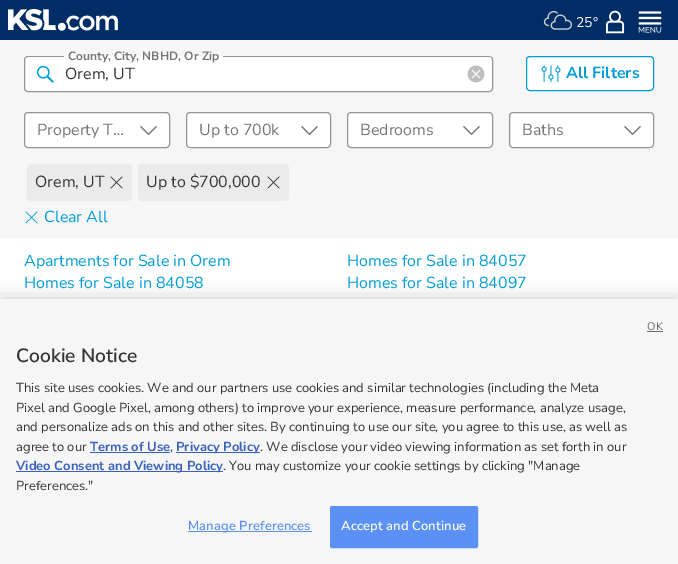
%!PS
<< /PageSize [678 564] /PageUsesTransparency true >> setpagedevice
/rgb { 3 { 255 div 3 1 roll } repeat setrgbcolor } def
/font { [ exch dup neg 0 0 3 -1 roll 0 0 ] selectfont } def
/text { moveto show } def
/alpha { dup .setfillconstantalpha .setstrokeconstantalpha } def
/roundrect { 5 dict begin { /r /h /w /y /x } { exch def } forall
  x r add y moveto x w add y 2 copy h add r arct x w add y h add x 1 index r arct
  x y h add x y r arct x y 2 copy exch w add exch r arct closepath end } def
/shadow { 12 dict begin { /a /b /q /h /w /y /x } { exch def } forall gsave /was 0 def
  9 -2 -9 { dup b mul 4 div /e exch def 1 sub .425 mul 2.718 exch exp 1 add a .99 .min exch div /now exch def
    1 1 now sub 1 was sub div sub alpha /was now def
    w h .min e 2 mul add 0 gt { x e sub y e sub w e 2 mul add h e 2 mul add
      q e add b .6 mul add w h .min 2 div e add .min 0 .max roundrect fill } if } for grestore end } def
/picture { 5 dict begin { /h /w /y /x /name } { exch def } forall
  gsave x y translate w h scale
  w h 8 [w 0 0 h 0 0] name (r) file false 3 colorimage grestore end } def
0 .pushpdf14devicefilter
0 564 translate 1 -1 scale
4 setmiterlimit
255 255 255 rgb
0 0 678 564 rectfill
0 45 101 rgb
0 0 678 40 rectfill
(img_01.rgb) 8 9 110 22 picture
(img_02.rgb) 543 10 29 20 picture
(img_03.rgb) 606 10 19 24 picture
(img_04.rgb) 638 11 24 22 picture
246 246 246 rgb
0 40 678 198 rectfill
255 255 255 rgb
24 56 469 36 4 roundrect fill
148 148 148 rgb
491.5 57.5 moveto 0.5 0.5 1 1.5 1 2.5 rcurveto 0 28 rlineto 0 1 -0.5 2 -1 2.5 rcurveto -0.5 0.5 -1.5 1 -2.5 1 rcurveto -461 0 rlineto -1 0 -2 -0.5 -2.5 -1 rcurveto -0.5 -0.5 -1 -1.5 -1 -2.5 rcurveto 0 -28 rlineto 0 -1 0.5 -2 1 -2.5 rcurveto stroke
28 56 moveto -1.5 0 -2 0.5 -2.5 1.5 rcurveto 0.5 0.5 rlineto 1.5 -1 rlineto 36.5 0 rlineto 0 3 rlineto 0 -4 rlineto closepath fill
223 56 moveto 0 1 rlineto 267 0 rlineto 1 1 rlineto 1 -1 rlineto -3 -1 rlineto closepath fill
(img_05.rgb) 36 65 18 18 picture
(img_06.rgb) 467 65 18 18 picture
255 255 255 rgb
526.5 56.5 127 34 3.5 roundrect gsave fill grestore
0 157 214 rgb
stroke
(img_07.rgb) 541 65 20 18 picture
255 255 255 rgb
24.5 112.5 145 35 3.5 roundrect gsave fill grestore
148 148 148 rgb
stroke
(img_08.rgb) 140 126 17 9 picture
255 255 255 rgb
186.5 112.5 144 35 3.5 roundrect gsave fill grestore
148 148 148 rgb
stroke
(img_08.rgb) 301 126 17 9 picture
255 255 255 rgb
347.5 112.5 145 35 3.5 roundrect gsave fill grestore
148 148 148 rgb
stroke
(img_08.rgb) 463 126 17 9 picture
255 255 255 rgb
509.5 112.5 144 35 3.5 roundrect gsave fill grestore
148 148 148 rgb
stroke
(img_08.rgb) 624 126 17 9 picture
235 235 235 rgb
27 164 105 37 4 roundrect fill
(img_09.rgb) 110 176 13 13 picture
138 164 151 37 4 roundrect fill
(img_09.rgb) 267 176 13 13 picture
(img_10.rgb) 25 211 13 13 picture
0 0 0 rgb
0 299 678 265 0 9 0.2 shadow
246 246 246 rgb
0 299 678 265 rectfill
105 105 105 rgb
647 331 16 1 rectfill
56 96 190 rgb
90 452 80 1 rectfill
176 452 84 1 rectfill
16 471 207 1 rectfill
91 145 244 rgb
188 531 124 1 rectfill
330.5 506.5 147 41 1.5 roundrect gsave fill grestore
stroke
/NunitoSans-Regular 14 font
255 255 255 rgb
(25°) 576 27 text
/NunitoSans-Bold 12 font
118 118 118 rgb
(County, City, NBHD, Or Zip) 68 60 text
/NunitoSans-Regular 16 font
52 52 52 rgb
(Orem, UT) 65 79 text
/NunitoSans-Bold 16 font
0 157 214 rgb
(All Filters) 566 78 text
/NunitoSans-Regular 16 font
118 118 118 rgb
(Property T…) 37 135 text
(Up to 700k) 199 135 text
(Bedrooms) 360 135 text
(Baths) 522 135 text
52 52 52 rgb
(Orem, UT) 35 187 text
(Up to $700,000) 146 187 text
0 157 214 rgb
(Clear All) 44 222 text
(Apartments for Sale in Orem) 24 266 text
(Homes for Sale in 84057) 347 266 text
(Homes for Sale in 84058) 24 288 text
(Homes for Sale in 84097) 347 288 text
/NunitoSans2-Regular 11 font
105 105 105 rgb
(OK) 647 330 text
/NunitoSans-SemiBold 19.25 font
52 52 52 rgb
(Cookie Notice) 16 362 text
/NunitoSans-Regular 13 font
(This site uses cookies. We and our partners use cookies and similar technologies \(including the Meta) 16 392 text
(Pixel and Google Pixel, among others\) to improve your experience, measure performance, analyze usage,) 16 412 text
(and personalize ads on this and other sites. By continuing to use our site, you agree to this use, as well as) 16 431 text
(agree to our) 16 451 text
/NunitoSans-Bold 13 font
56 96 190 rgb
(Terms of Use) 90 451 text
/NunitoSans-Regular 13 font
52 52 52 rgb
(,) 170 451 text
/NunitoSans-Bold 13 font
56 96 190 rgb
(Privacy Policy) 176 451 text
/NunitoSans-Regular 13 font
52 52 52 rgb
(. We disclose your video viewing information as set forth in our) 260 451 text
/NunitoSans-Bold 13 font
56 96 190 rgb
(Video Consent and Viewing Policy) 16 470 text
/NunitoSans-Regular 13 font
52 52 52 rgb
(. You may customize your cookie settings by clicking "Manage) 223 470 text
(Preferences.") 16 490 text
/NunitoSans-SemiBold 13 font
91 145 244 rgb
188 530 moveto 0.1 0 (Manage Preferences) ashow
255 255 255 rgb
341 530 moveto 0.1 0 (Accept and Continue) ashow
.poppdf14devicefilter showpage
